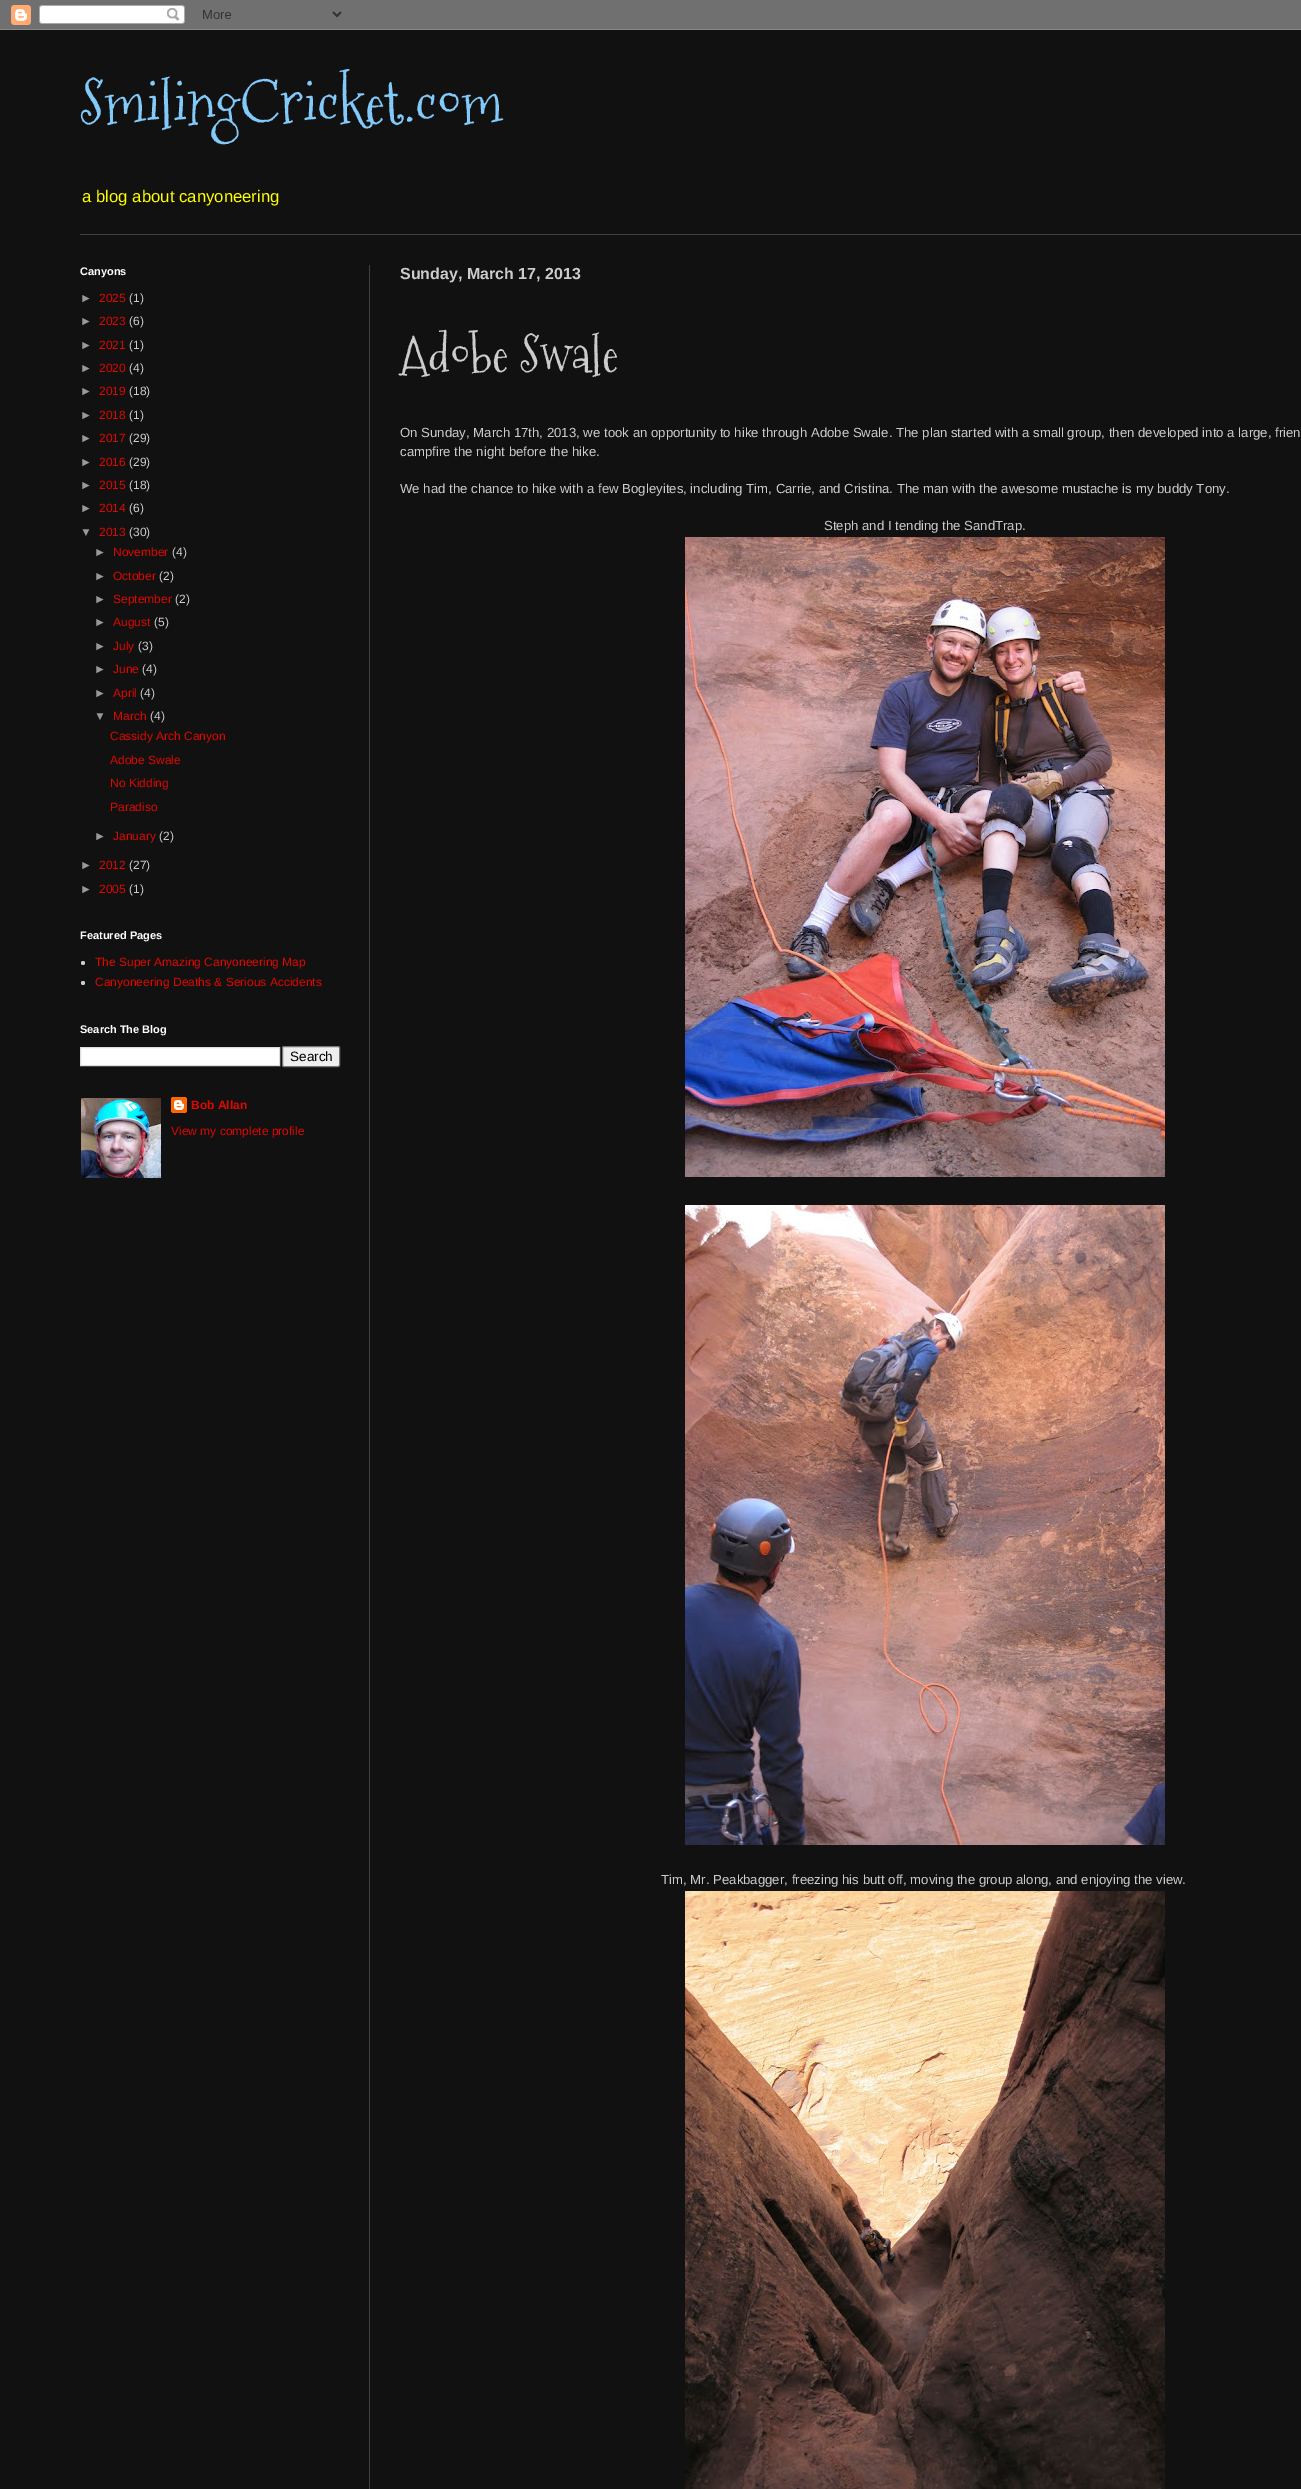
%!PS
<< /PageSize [1301 2489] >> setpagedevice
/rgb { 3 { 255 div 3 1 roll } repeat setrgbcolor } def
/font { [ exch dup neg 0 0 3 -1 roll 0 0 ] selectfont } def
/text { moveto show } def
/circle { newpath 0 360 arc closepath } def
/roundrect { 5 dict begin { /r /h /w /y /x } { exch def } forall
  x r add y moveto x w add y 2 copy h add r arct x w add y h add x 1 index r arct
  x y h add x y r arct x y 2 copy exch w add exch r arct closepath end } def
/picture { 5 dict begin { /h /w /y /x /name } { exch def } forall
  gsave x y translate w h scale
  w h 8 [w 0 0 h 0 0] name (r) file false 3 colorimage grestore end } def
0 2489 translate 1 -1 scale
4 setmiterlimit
17 17 17 rgb
0 0 1301 2489 rectfill
(img_01.rgb) 0 0 1301 30 picture
64 64 64 rgb
80 234 1221 1 rectfill
369 265 1 2224 rectfill
204 204 204 rgb
83 963 2 circle fill
83 983 2 circle fill
255 255 255 rgb
80.5 1047.5 moveto 199 0 rlineto 0 18 rlineto -199 0 rlineto closepath gsave fill grestore
221 221 221 rgb
stroke
239 239 239 rgb
282.5 1046.5 57 20 1.5 roundrect gsave fill grestore
118 118 118 rgb
stroke
(img_02.rgb) 81 1098 80 80 picture
(img_03.rgb) 171 1097 16 16 picture
(img_04.rgb) 685 537 480 640 picture
(img_05.rgb) 685 1205 480 640 picture
(img_06.rgb) 685 1891 480 598 picture
/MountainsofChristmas-Regular 60 font
130 202 250 rgb
(SmilingCricket.com) 80 124 text
/LiberationSans-Regular 16.75 font
255 255 0 rgb
(a blog about canyoneering) 82 202 text
/LiberationSans-Bold 11 font
255 255 255 rgb
(Canyons) 80 275 text
/LiberationSans-Regular 12 font
153 153 153 rgb
(►) 80 302 text
221 8 0 rgb
(2025) 99 302 text
204 204 204 rgb
(\(1\)) 129 302 text
153 153 153 rgb
(►) 80 325 text
221 8 0 rgb
(2023) 99 325 text
204 204 204 rgb
(\(6\)) 129 325 text
153 153 153 rgb
(►) 80 349 text
221 8 0 rgb
(2021) 99 349 text
204 204 204 rgb
(\(1\)) 129 349 text
153 153 153 rgb
(►) 80 372 text
221 8 0 rgb
(2020) 99 372 text
204 204 204 rgb
(\(4\)) 129 372 text
153 153 153 rgb
(►) 80 395 text
221 8 0 rgb
(2019) 99 395 text
204 204 204 rgb
(\(18\)) 129 395 text
153 153 153 rgb
(►) 80 419 text
221 8 0 rgb
(2018) 99 419 text
204 204 204 rgb
(\(1\)) 129 419 text
153 153 153 rgb
(►) 80 442 text
221 8 0 rgb
(2017) 99 442 text
204 204 204 rgb
(\(29\)) 129 442 text
153 153 153 rgb
(►) 80 466 text
221 8 0 rgb
(2016) 99 466 text
204 204 204 rgb
(\(29\)) 129 466 text
153 153 153 rgb
(►) 80 489 text
221 8 0 rgb
(2015) 99 489 text
204 204 204 rgb
(\(18\)) 129 489 text
153 153 153 rgb
(►) 80 512 text
221 8 0 rgb
(2014) 99 512 text
204 204 204 rgb
(\(6\)) 129 512 text
153 153 153 rgb
(▼) 80 536 text
221 8 0 rgb
(2013) 99 536 text
204 204 204 rgb
(\(30\)) 129 536 text
153 153 153 rgb
(►) 94 556 text
221 8 0 rgb
(November) 113 556 text
204 204 204 rgb
(\(4\)) 172 556 text
153 153 153 rgb
(►) 94 580 text
221 8 0 rgb
(October) 113 580 text
204 204 204 rgb
(\(2\)) 159 580 text
153 153 153 rgb
(►) 94 603 text
221 8 0 rgb
(September) 113 603 text
204 204 204 rgb
(\(2\)) 175 603 text
153 153 153 rgb
(►) 94 626 text
221 8 0 rgb
(August) 113 626 text
204 204 204 rgb
(\(5\)) 154 626 text
153 153 153 rgb
(►) 94 650 text
221 8 0 rgb
(July) 113 650 text
204 204 204 rgb
(\(3\)) 138 650 text
153 153 153 rgb
(►) 94 673 text
221 8 0 rgb
(June) 113 673 text
204 204 204 rgb
(\(4\)) 142 673 text
153 153 153 rgb
(►) 94 697 text
221 8 0 rgb
(April) 113 697 text
204 204 204 rgb
(\(4\)) 140 697 text
153 153 153 rgb
(▼) 94 720 text
221 8 0 rgb
(March) 113 720 text
204 204 204 rgb
(\(4\)) 150 720 text
221 8 0 rgb
(Cassidy Arch Canyon) 110 740 text
(Adobe Swale) 110 764 text
(No Kidding) 110 787 text
(Paradiso) 110 811 text
153 153 153 rgb
(►) 94 840 text
221 8 0 rgb
(January) 113 840 text
204 204 204 rgb
(\(2\)) 159 840 text
153 153 153 rgb
(►) 80 869 text
221 8 0 rgb
(2012) 99 869 text
204 204 204 rgb
(\(27\)) 129 869 text
153 153 153 rgb
(►) 80 893 text
221 8 0 rgb
(2005) 99 893 text
204 204 204 rgb
(\(1\)) 129 893 text
/LiberationSans-Bold 11 font
255 255 255 rgb
(Featured Pages) 80 939 text
/LiberationSans-Regular 12 font
221 8 0 rgb
(The Super Amazing Canyoneering Map) 95 966 text
(Canyoneering Deaths & Serious Accidents) 95 986 text
/LiberationSans-Bold 11 font
255 255 255 rgb
(Search The Blog) 80 1033 text
/LiberationSans-Regular 13.5 font
0 0 0 rgb
(Search) 290 1061 text
/LiberationSans-Bold 12 font
221 8 0 rgb
(Bob Allan) 191 1109 text
/LiberationSans-Regular 12 font
(View my complete profile) 171 1135 text
/LiberationSans-Bold 16 font
204 204 204 rgb
(Sunday, March 17, 2013) 400 279 text
/MountainsofChristmas-Regular 50 font
(Adobe Swale) 400 372 text
/LiberationSans-Regular 13.2 font
(On Sunday, March 17th, 2013, we took an opportunity to hike through Adobe Swale. The plan started with a small group, then developed into a large, frien) 400 437 text
(campfire the night before the hike.) 400 456 text
(We had the chance to hike with a few Bogleyites, including Tim, Carrie, and Cristina. The man with the awesome mustache is my buddy Tony.) 400 493 text
(Steph and I tending the SandTrap.) 824 530 text
(Tim, Mr. Peakbagger, freezing his butt off, moving the group along, and enjoying the view.) 661 1884 text
showpage
